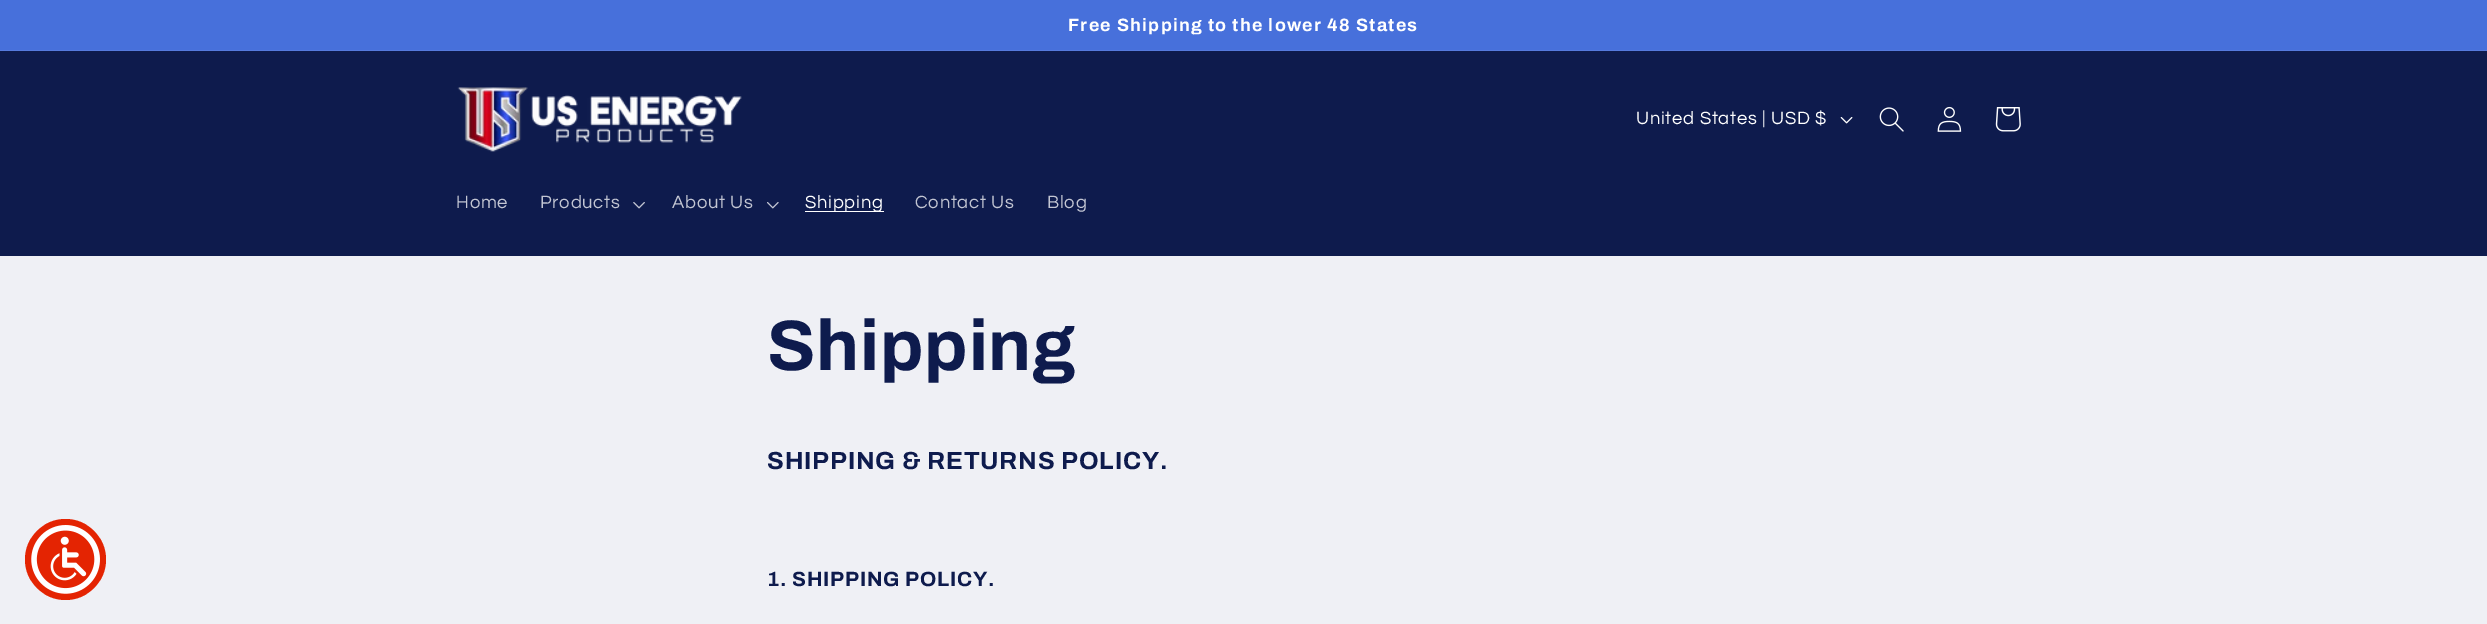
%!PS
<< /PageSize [2487 624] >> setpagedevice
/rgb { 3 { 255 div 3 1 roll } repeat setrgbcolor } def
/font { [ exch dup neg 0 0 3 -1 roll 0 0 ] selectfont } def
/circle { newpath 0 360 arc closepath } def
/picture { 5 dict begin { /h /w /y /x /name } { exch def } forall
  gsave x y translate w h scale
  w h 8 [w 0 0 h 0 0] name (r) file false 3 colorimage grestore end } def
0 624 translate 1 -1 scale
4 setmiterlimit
239 240 245 rgb
0 0 2487 624 rectfill
71 112 219 rgb
0 0 2487 50 rectfill
86 123 222 rgb
0 50 2487 1 rectfill
14 27 77 rgb
0 51 2487 205 rectfill
(img_01.rgb) 457 87 285 65 picture
(img_02.rgb) 1840 117 13 7 picture
(img_03.rgb) 1879 107 25 25 picture
(img_04.rgb) 1937 106 25 26 picture
(img_05.rgb) 1995 107 26 25 picture
(img_06.rgb) 633 202 12 7 picture
(img_07.rgb) 767 202 12 7 picture
255 255 255 rgb
805 211 79 1 rectfill
228 36 2 rgb
65.5 559.5 40.5 circle fill
(img_08.rgb) 31 525 69 69 picture
/Archivo-Bold 17.9 font
255 255 255 rgb
1068 31 moveto 1.3 0 (Free Shipping to the lower 48 States) ashow
/Questrial-Regular 18.4 font
1636 124 moveto 0.75 0 (United States | USD $) ashow
195 198 211 rgb
456 208 moveto 0.75 0 (Home) ashow
540 208 moveto 0.75 0 (Products) ashow
672 208 moveto 0.75 0 (About Us) ashow
255 255 255 rgb
805 208 moveto 0.75 0 (Shipping) ashow
195 198 211 rgb
915 208 moveto 0.75 0 (Contact Us) ashow
1047 208 moveto 0.75 0 (Blog) ashow
/Archivo-Bold 71.5 font
14 27 77 rgb
767 370 moveto 0.8 0 (Shipping) ashow
/Archivo-Bold 24.75 font
767 469 moveto 0.8 0 (SHIPPING & RETURNS POLICY.) ashow
/Archivo-Bold 20.6 font
767 586 moveto 0.8 0 (1. SHIPPING POLICY.) ashow
showpage
